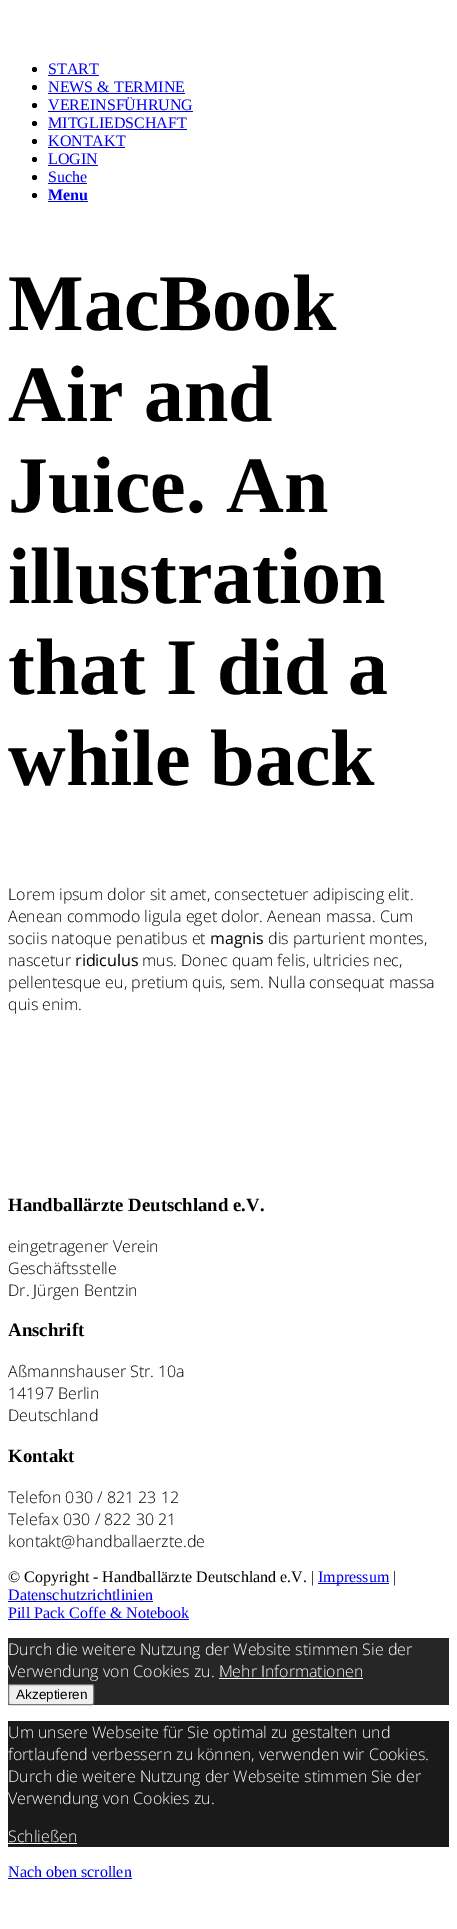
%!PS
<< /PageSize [457 1929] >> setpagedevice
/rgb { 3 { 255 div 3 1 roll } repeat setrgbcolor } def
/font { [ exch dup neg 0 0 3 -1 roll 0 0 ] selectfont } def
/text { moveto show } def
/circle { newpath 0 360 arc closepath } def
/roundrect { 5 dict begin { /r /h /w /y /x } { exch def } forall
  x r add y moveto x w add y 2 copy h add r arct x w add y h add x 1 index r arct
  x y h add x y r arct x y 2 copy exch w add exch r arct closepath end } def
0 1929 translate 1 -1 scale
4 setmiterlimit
255 255 255 rgb
0 0 457 1929 rectfill
0 0 0 rgb
34.5 69.5 2.5 circle fill
0 0 238 rgb
48 75 51 1 rectfill
0 0 0 rgb
34.5 87.5 2.5 circle fill
0 0 238 rgb
48 93 137 1 rectfill
0 0 0 rgb
34.5 105.5 2.5 circle fill
0 0 238 rgb
48 111 145 1 rectfill
0 0 0 rgb
34.5 123.5 2.5 circle fill
0 0 238 rgb
48 129 139 1 rectfill
0 0 0 rgb
34.5 141.5 2.5 circle fill
0 0 238 rgb
48 147 77 1 rectfill
0 0 0 rgb
34.5 159.5 2.5 circle fill
0 0 238 rgb
48 165 50 1 rectfill
0 0 0 rgb
34.5 177.5 2.5 circle fill
0 0 238 rgb
48 183 39 1 rectfill
0 0 0 rgb
34.5 195.5 2.5 circle fill
0 0 238 rgb
48 201 40 1 rectfill
318 1583 71 1 rectfill
8 1601 145 1 rectfill
8 1619 181 1 rectfill
38 38 38 rgb
8 1638 441 67 rectfill
255 255 255 rgb
219 1678 144 1 rectfill
239 239 239 rgb
8.5 1684.5 85 20 1.5 roundrect gsave fill grestore
118 118 118 rgb
stroke
26 26 26 rgb
8 1721 441 126 rectfill
255 255 255 rgb
8 1843 69 1 rectfill
0 0 238 rgb
8 1878 124 1 rectfill
/LiberationSerif-Regular 16 font
(START) 48 74 text
(NEWS & TERMINE) 48 92 text
(VEREINSFÜHRUNG) 48 110 text
(MITGLIEDSCHAFT) 48 128 text
(KONTAKT) 48 146 text
(LOGIN) 48 164 text
(Suche) 48 182 text
/LiberationSerif-Bold 16 font
(Menu) 48 200 text
/LiberationSerif-Bold 80 font
0 0 0 rgb
(MacBook) 8 330 text
(Air and) 8 421 text
(Juice. An) 8 512 text
(illustration) 8 603 text
(that I did a) 8 694 text
(while back) 8 785 text
/OpenSans-Light 16 font
(Lorem ipsum dolor sit amet, consectetuer adipiscing elit.) 8 900 text
(Aenean commodo ligula eget dolor. Aenean massa. Cum) 8 922 text
(sociis natoque penatibus et) 8 944 text
/OpenSans-Regular 16 font
(magnis) 210 944 text
/OpenSans-Light 16 font
(dis parturient montes,) 268 944 text
(nascetur) 8 966 text
/OpenSans-Regular 16 font
(ridiculus) 75 966 text
/OpenSans-Light 16 font
(mus. Donec quam felis, ultricies nec,) 142 966 text
(pellentesque eu, pretium quis, sem. Nulla consequat massa) 8 988 text
(quis enim.) 8 1010 text
/LiberationSerif-Bold 18.75 font
(Handballärzte Deutschland e.V.) 8 1211 text
/OpenSans-Light 16 font
(eingetragener Verein) 8 1252 text
(Geschäftsstelle) 8 1274 text
(Dr. Jürgen Bentzin) 8 1296 text
/LiberationSerif-Bold 18.75 font
(Anschrift) 8 1336 text
/OpenSans-Light 16 font
(Aßmannshauser Str. 10a) 8 1377 text
(14197 Berlin) 8 1399 text
(Deutschland) 8 1421 text
/LiberationSerif-Bold 18.75 font
(Kontakt) 8 1462 text
/OpenSans-Light 16 font
(Telefon 030 / 821 23 12) 8 1503 text
(Telefax 030 / 822 30 21) 8 1525 text
(kontakt@handballaerzte.de) 8 1547 text
/LiberationSerif-Regular 16 font
(© Copyright - Handballärzte Deutschland e.V. |) 8 1582 text
0 0 238 rgb
(Impressum) 318 1582 text
0 0 0 rgb
(|) 393 1582 text
0 0 238 rgb
(Datenschutzrichtlinien) 8 1600 text
(Pill Pack Coffe & Notebook) 8 1618 text
/OpenSans-Light 16 font
255 255 255 rgb
(Durch die weitere Nutzung der Website stimmen Sie der) 8 1655 text
(Verwendung von Cookies zu. Mehr Informationen) 8 1677 text
/LiberationSans-Regular 13.5 font
0 0 0 rgb
(Akzeptieren) 16 1699 text
/OpenSans-Light 16 font
255 255 255 rgb
(Um unsere Webseite für Sie optimal zu gestalten und) 8 1738 text
(fortlaufend verbessern zu können, verwenden wir Cookies.) 8 1760 text
(Durch die weitere Nutzung der Webseite stimmen Sie der) 8 1782 text
(Verwendung von Cookies zu.) 8 1804 text
(Schließen) 8 1842 text
/LiberationSerif-Regular 16 font
0 0 238 rgb
(Nach oben scrollen) 8 1877 text
showpage
